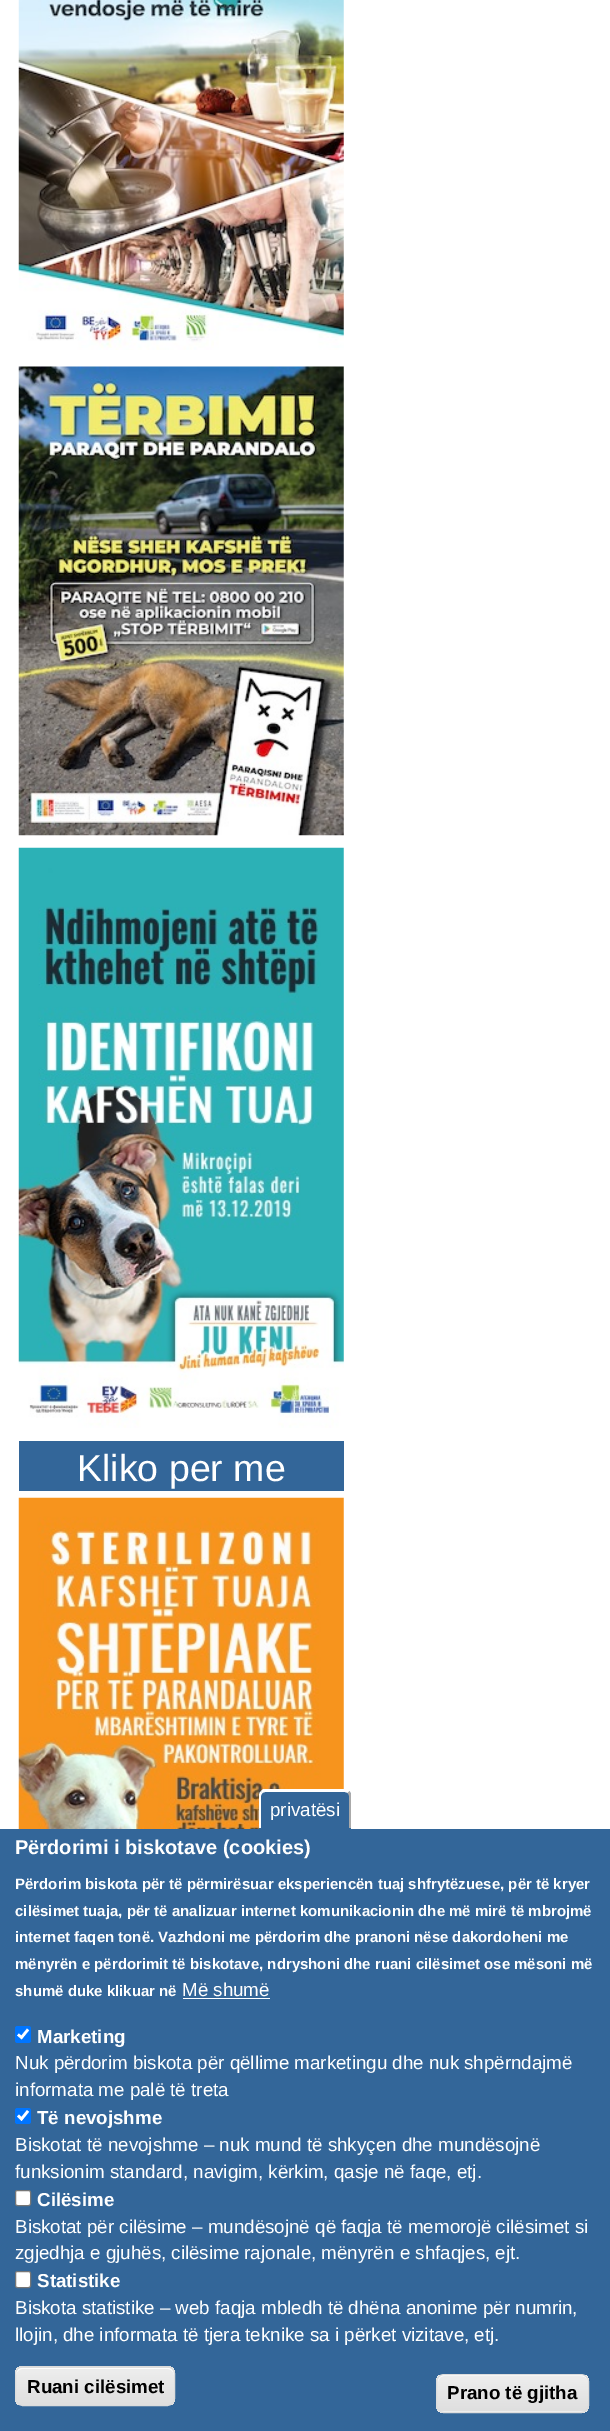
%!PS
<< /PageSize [610 2431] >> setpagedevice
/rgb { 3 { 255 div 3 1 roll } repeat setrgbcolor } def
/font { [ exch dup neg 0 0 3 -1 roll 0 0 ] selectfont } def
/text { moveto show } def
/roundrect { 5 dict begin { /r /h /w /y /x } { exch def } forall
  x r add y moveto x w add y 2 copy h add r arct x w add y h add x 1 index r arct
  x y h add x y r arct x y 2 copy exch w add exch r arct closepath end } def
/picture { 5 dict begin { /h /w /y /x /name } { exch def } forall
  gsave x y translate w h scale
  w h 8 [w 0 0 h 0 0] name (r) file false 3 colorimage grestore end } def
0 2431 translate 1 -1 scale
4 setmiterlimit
255 255 255 rgb
0 0 610 2431 rectfill
(img_01.rgb) 18 0 326 350 picture
(img_02.rgb) 18 366 326 470 picture
(img_03.rgb) 18 847 326 581 picture
51 102 153 rgb
19 1441 325 50 rectfill
(img_04.rgb) 18 1497 326 332 picture
0 1829 610 602 rectfill
265 1790 moveto 80 0 rlineto 3.5 0 6 2.5 6 6 rcurveto 0 33 rlineto -92 0 rlineto 0 -33 rlineto 0 -3.5 2.5 -6 6 -6 rcurveto closepath fill
255 255 255 rgb
265 1792 moveto -3 1 rlineto -1 -2 rlineto 2 -2 rlineto 84 0 rlineto 3 2 rlineto -2 2 rlineto -3 -1 rlineto closepath fill
170 170 170 rgb
349.5 1791 moveto -2 2 rlineto 1 1 1.5 2 1.5 3 rcurveto 0 32 rlineto 2 0 rlineto 0 -32 rlineto 0 -2 -0.5 -3.5 -1.5 -5 rcurveto closepath fill
255 255 255 rgb
262.5 1793 moveto -2 -1.5 rlineto -1 1 -1.5 2.5 -1.5 4.5 rcurveto 0 32 rlineto 2 0 rlineto 0 -32 rlineto 0 -1 0.5 -2 1.5 -3 rcurveto closepath fill
183 1998 87 1 rectfill
0 117 255 rgb
15 2026 16 17 2.5 roundrect fill
255 255 255 rgb
2.6 setlinewidth
18 2034.5 moveto 3.5 3 rlineto 6.5 -8 rlineto stroke
0 117 255 rgb
15 2108 16 16 2.5 roundrect fill
255 255 255 rgb
18 2115.5 moveto 3.5 3.5 rlineto 6.5 -8 rlineto stroke
15.5 2190.5 15 15 2 roundrect gsave fill grestore
118 118 118 rgb
1 setlinewidth
stroke
255 255 255 rgb
15.5 2271.5 15 16 2 roundrect gsave fill grestore
118 118 118 rgb
stroke
gsave
15 2366 160 40 8 roundrect clip newpath
gsave 15 2366 moveto 160 0 rlineto 0 2 rlineto -160 0 rlineto closepath clip newpath
<< /ShadingType 2 /ColorSpace /DeviceRGB /Coords [95 2330 95 2368] /Extend [true true] /Function << /FunctionType 3 /Domain [0 1] /Functions [<< /FunctionType 2 /Domain [0 1] /C0 [0.929 0.929 0.929] /C1 [0.929 0.929 0.929] /N 1 >> << /FunctionType 2 /Domain [0 1] /C0 [0.929 0.929 0.929] /C1 [0.875 0.875 0.875] /N 1 >>] /Bounds [0.05] /Encode [0 1 0 1] >> >> shfill grestore
gsave 15 2368 moveto 160 0 rlineto 0 37 rlineto -160 0 rlineto closepath clip newpath
<< /ShadingType 2 /ColorSpace /DeviceRGB /Coords [95 2368 95 2405] /Extend [true true] /Function << /FunctionType 3 /Domain [0 1] /Functions [<< /FunctionType 2 /Domain [0 1] /C0 [0.929 0.929 0.929] /C1 [0.929 0.929 0.929] /N 1 >> << /FunctionType 2 /Domain [0 1] /C0 [0.929 0.929 0.929] /C1 [0.875 0.875 0.875] /N 1 >>] /Bounds [0.05] /Encode [0 1 0 1] >> >> shfill grestore
grestore
255 255 255 rgb
22 2369 moveto 146 0 rlineto 3 0 6 3 6 6 rcurveto 0 -1 rlineto 0 -3 -3 -6 -6 -6 rcurveto -146 0 rlineto -3 0 -6 3 -6 6 rcurveto 0 1 rlineto 0 -3 3 -6 6 -6 rcurveto closepath fill
220 220 220 rgb
15.5 2366.5 159 39 7.5 roundrect stroke
gsave
436 2374 153 39 8 roundrect clip newpath
gsave 436 2375 moveto 153 0 rlineto 0 36 rlineto -153 0 rlineto closepath clip newpath
<< /ShadingType 2 /ColorSpace /DeviceRGB /Coords [513 2375 513 2411] /Extend [true true] /Function << /FunctionType 3 /Domain [0 1] /Functions [<< /FunctionType 2 /Domain [0 1] /C0 [0.929 0.929 0.929] /C1 [0.929 0.929 0.929] /N 1 >> << /FunctionType 2 /Domain [0 1] /C0 [0.929 0.929 0.929] /C1 [0.875 0.875 0.875] /N 1 >>] /Bounds [0.05] /Encode [0 1 0 1] >> >> shfill grestore
gsave 436 2411 moveto 153 0 rlineto 0 2 rlineto -153 0 rlineto closepath clip newpath
<< /ShadingType 2 /ColorSpace /DeviceRGB /Coords [513 2411 513 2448] /Extend [true true] /Function << /FunctionType 3 /Domain [0 1] /Functions [<< /FunctionType 2 /Domain [0 1] /C0 [0.929 0.929 0.929] /C1 [0.929 0.929 0.929] /N 1 >> << /FunctionType 2 /Domain [0 1] /C0 [0.929 0.929 0.929] /C1 [0.875 0.875 0.875] /N 1 >>] /Bounds [0.05] /Encode [0 1 0 1] >> >> shfill grestore
grestore
255 255 255 rgb
444 2376 moveto 137 0 rlineto 4 0 7 3 7 6 rcurveto 0 -1 rlineto 0 -3 -3 -6 -6 -6 rcurveto -138 0 rlineto -3 0 -6 3 -6 6 rcurveto 0 1 rlineto 0 -3 2 -6 6 -6 rcurveto closepath fill
220 220 220 rgb
436.5 2374.5 152 38 7.5 roundrect stroke
/LiberationSans-Regular 37.5 font
255 255 255 rgb
(Kliko per me) 77 1481 text
/LiberationSans-Regular 18.75 font
(privatësi) 270 1816 text
/LiberationSans-Bold 20 font
(Përdorimi i biskotave \(cookies\)) 15 1854 text
/LiberationSans-Bold 15 font
(Përdorim biskota për të përmirësuar eksperiencën tuaj shfrytëzuese, për të kryer) 15 1889 text
(cilësimet tuaja, për të analizuar internet komunikacionin dhe më mirë të mbrojmë) 15 1916 text
(internet faqen tonë. Vazhdoni me përdorim dhe pranoni nëse dakordoheni me) 15 1942 text
(mënyrën e përdorimit të biskotave, ndryshoni dhe ruani cilësimet ose mësoni më) 15 1969 text
(shumë duke klikuar në) 15 1996 text
/LiberationSans-Regular 18.75 font
(Më shumë) 182 1996 text
/LiberationSans-Bold 18.75 font
(Marketing) 37 2043 text
/LiberationSans-Regular 18.75 font
(Nuk përdorim biskota për qëllime marketingu dhe nuk shpërndajmë) 15 2069 text
(informata me palë të treta) 15 2096 text
/LiberationSans-Bold 18.75 font
(Të nevojshme) 37 2124 text
/LiberationSans-Regular 18.75 font
(Biskotat të nevojshme – nuk mund të shkyçen dhe mundësojnë) 15 2151 text
(funksionim standard, navigim, kërkim, qasje në faqe, etj.) 15 2178 text
/LiberationSans-Bold 18.75 font
(Cilësime) 37 2206 text
/LiberationSans-Regular 18.75 font
(Biskotat për cilësime – mundësojnë që faqja të memorojë cilësimet si) 15 2233 text
(zgjedhja e gjuhës, cilësime rajonale, mënyrën e shfaqjes, ejt.) 15 2259 text
/LiberationSans-Bold 18.75 font
(Statistike) 37 2287 text
/LiberationSans-Regular 18.75 font
(Biskota statistike – web faqja mbledh të dhëna anonime për numrin,) 15 2314 text
(llojin, dhe informata të tjera teknike sa i përket vizitave, etj.) 15 2341 text
/LiberationSans-Bold 18.75 font
0 0 0 rgb
(Ruani cilësimet) 27 2393 text
(Prano të gjitha) 447 2399 text
showpage
